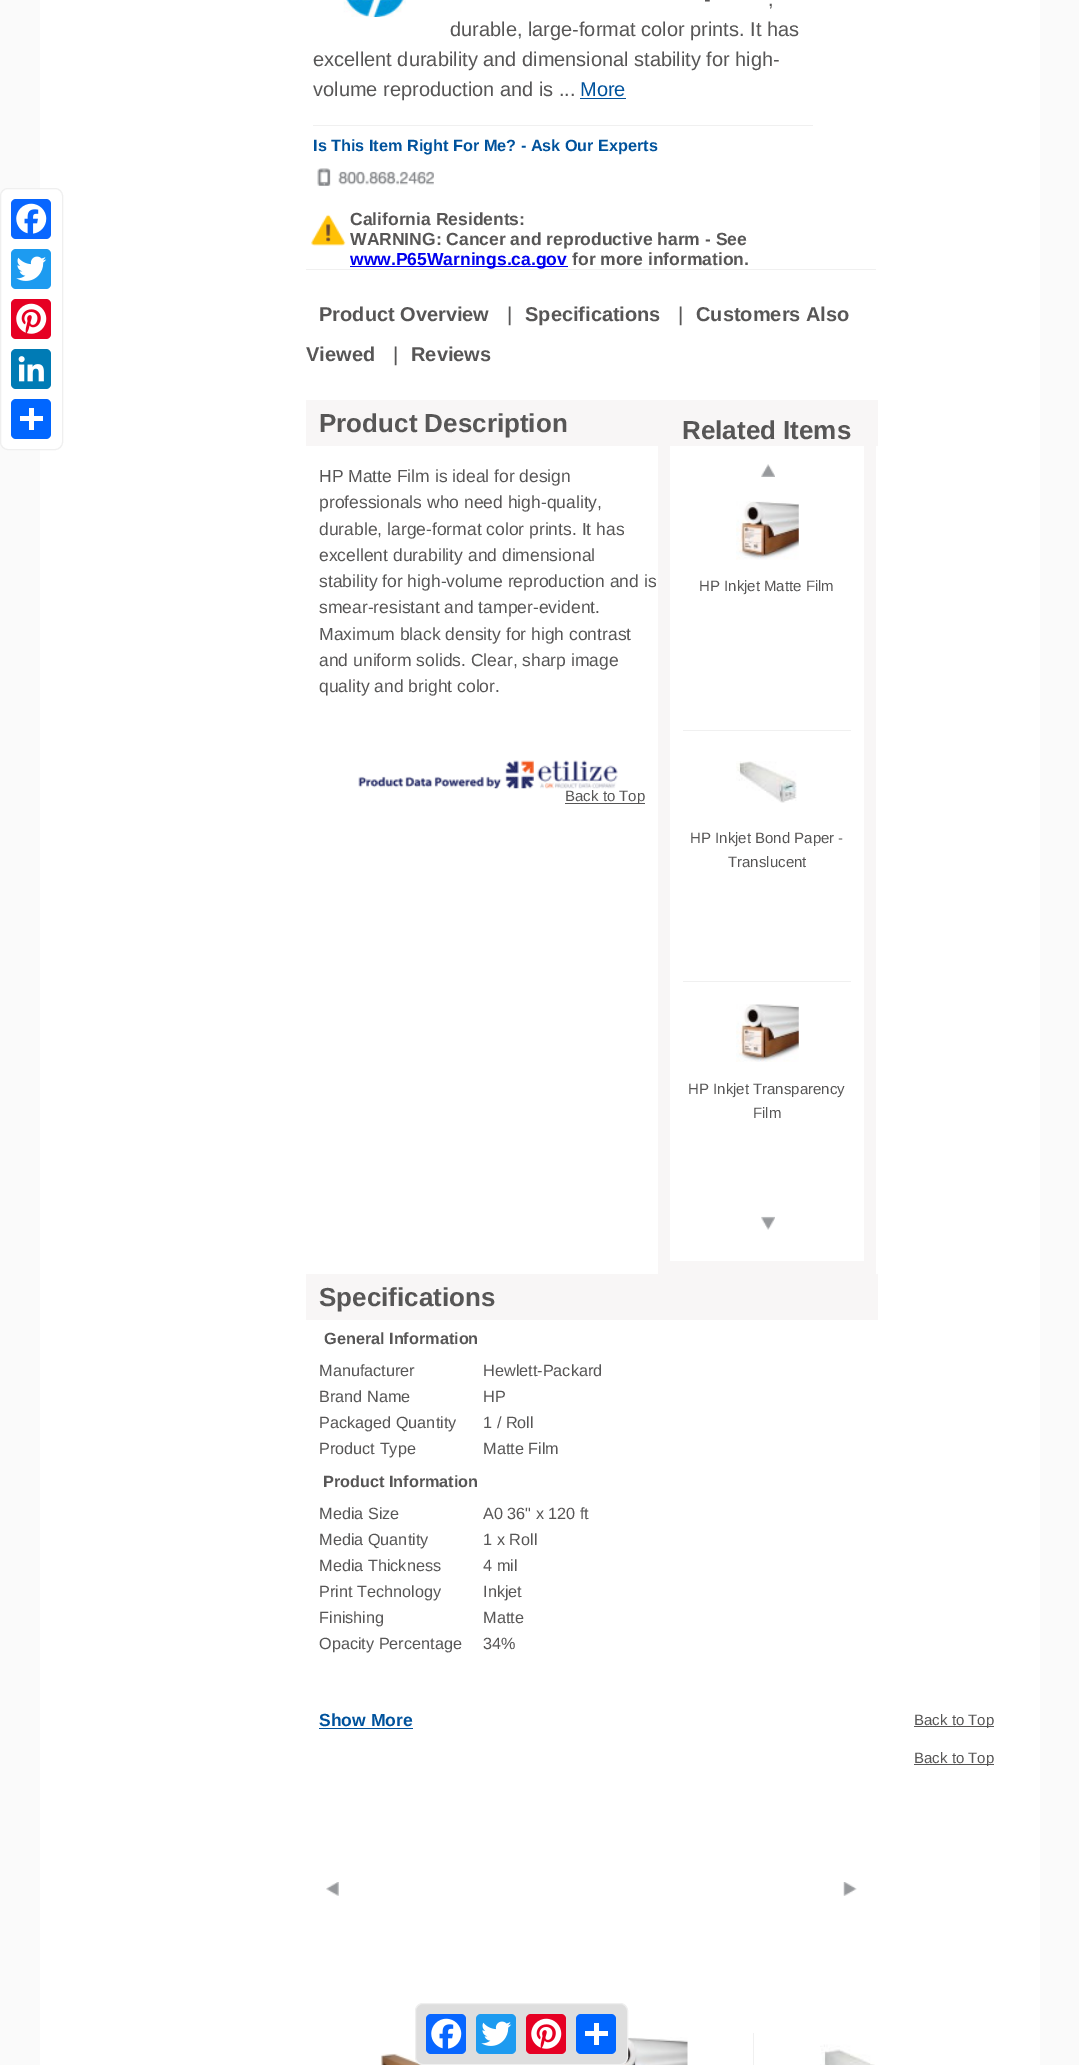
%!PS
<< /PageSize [1079 2065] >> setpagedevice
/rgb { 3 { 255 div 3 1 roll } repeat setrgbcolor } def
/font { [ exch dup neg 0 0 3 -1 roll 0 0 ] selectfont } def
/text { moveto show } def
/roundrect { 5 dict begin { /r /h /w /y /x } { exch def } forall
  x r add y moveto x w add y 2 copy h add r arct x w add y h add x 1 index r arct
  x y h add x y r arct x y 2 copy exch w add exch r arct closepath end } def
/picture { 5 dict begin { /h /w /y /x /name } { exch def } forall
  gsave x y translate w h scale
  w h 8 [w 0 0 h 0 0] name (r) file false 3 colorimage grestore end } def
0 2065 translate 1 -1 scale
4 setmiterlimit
250 250 250 rgb
0 0 1079 2065 rectfill
255 255 255 rgb
40 0 1000 2065 rectfill
(img_01.rgb) 343 0 63 17 picture
0 82 156 rgb
580 98 46 1 rectfill
240 240 240 rgb
313 125 500 1 rectfill
(img_02.rgb) 317 168 117 18 picture
255 255 255 rgb
0.5 188.5 62 261 7.5 roundrect gsave fill grestore
239 239 239 rgb
stroke
8 102 255 rgb
11 199 40 40 5 roundrect fill
(img_03.rgb) 16 203 31 31 picture
29 155 240 rgb
11 249 40 40 5 roundrect fill
(img_04.rgb) 16 256 31 25 picture
230 0 35 rgb
11 299 40 40 5 roundrect fill
(img_05.rgb) 16 303 31 31 picture
0 123 181 rgb
11 349 40 40 5 roundrect fill
(img_06.rgb) 18 356 26 26 picture
1 102 255 rgb
11 399 40 40 5 roundrect fill
255 255 255 rgb
29 408 5 22 rectfill
20 416 23 5 rectfill
(img_07.rgb) 311 214 35 32 picture
0 0 238 rgb
350 266 218 1 rectfill
240 240 240 rgb
306 269 570 1 rectfill
248 246 246 rgb
306 400 572 46 rectfill
(img_08.rgb) 358 760 260 29 picture
658 446 218 828 rectfill
255 255 255 rgb
670 446 194 815 rectfill
(img_09.rgb) 761 464 14 13 picture
240 240 240 rgb
683 730 168 1 rectfill
(img_10.rgb) 736 501 63 59 picture
683 981 168 1 rectfill
(img_11.rgb) 736 761 61 42 picture
(img_12.rgb) 736 1004 63 58 picture
(img_13.rgb) 761 1216 14 14 picture
87 86 86 rgb
565 803 80 1 rectfill
248 246 246 rgb
306 1274 572 46 rectfill
0 82 156 rgb
319 1728 94 1 rectfill
87 86 86 rgb
914 1726 80 1 rectfill
914 1764 80 1 rectfill
(img_14.rgb) 326 1882 13 14 picture
(img_15.rgb) 843 1882 14 14 picture
(img_16.rgb) 380 2053 43 12 picture
240 240 240 rgb
753 2033 1 32 rectfill
(img_17.rgb) 620 2037 68 28 picture
(img_18.rgb) 820 2044 55 21 picture
222 222 222 rgb
415.5 2003.5 212 61 7.5 roundrect gsave fill grestore
239 239 239 rgb
stroke
8 102 255 rgb
426 2014 40 40 5 roundrect fill
(img_03.rgb) 431 2018 31 31 picture
29 155 240 rgb
476 2014 40 40 5 roundrect fill
(img_04.rgb) 481 2021 31 25 picture
230 0 35 rgb
526 2014 40 40 5 roundrect fill
(img_05.rgb) 531 2018 31 31 picture
1 102 255 rgb
576 2014 40 40 5 roundrect fill
255 255 255 rgb
594 2023 5 22 rectfill
585 2031 23 5 rectfill
/LiberationSans-Regular 20 font
87 86 86 rgb
(-) 704 6 text
(,) 768 6 text
(durable, large-format color prints. It has) 450 36 text
(excellent durability and dimensional stability for high-) 313 66 text
(volume reproduction and is ...) 313 96 text
0 82 156 rgb
(More) 580 96 text
/LiberationSans-Bold 16.25 font
(Is This Item Right For Me? - Ask Our Experts) 313 151 text
/LiberationSans-Bold 17.5 font
87 86 86 rgb
(California Residents:) 350 225 text
(WARNING: Cancer and reproductive harm - See) 350 245 text
0 0 238 rgb
(www.P65Warnings.ca.gov) 350 265 text
87 86 86 rgb
(for more information.) 572 265 text
/LiberationSans-Bold 20 font
(Product Overview) 319 321 text
/LiberationSans-Regular 20 font
(|) 507 321 text
/LiberationSans-Bold 20 font
(Specifications) 525 321 text
/LiberationSans-Regular 20 font
(|) 678 321 text
/LiberationSans-Bold 20 font
(Customers Also) 696 321 text
(Viewed) 306 361 text
/LiberationSans-Regular 20 font
(|) 393 361 text
/LiberationSans-Bold 20 font
(Reviews) 411 361 text
/LiberationSans-Bold 26 font
(Product Description) 319 432 text
/LiberationSans-Regular 17.5 font
(HP Matte Film is ideal for design) 319 482 text
(professionals who need high-quality,) 319 508 text
(durable, large-format color prints. It has) 319 535 text
(excellent durability and dimensional) 319 561 text
(stability for high-volume reproduction and is) 319 587 text
(smear-resistant and tamper-evident.) 319 613 text
(Maximum black density for high contrast) 319 640 text
(and uniform solids. Clear, sharp image) 319 666 text
(quality and bright color.) 319 692 text
/LiberationSans-Bold 26 font
(Related Items) 682 439 text
/LiberationSans-Regular 15 font
(HP Inkjet Matte Film) 699 591 text
(HP Inkjet Bond Paper -) 690 843 text
(Translucent) 728 867 text
(HP Inkjet Transparency) 688 1094 text
(Film) 753 1118 text
(Back to Top) 565 801 text
/LiberationSans-Bold 26 font
(Specifications) 319 1306 text
/LiberationSans-Bold 16.25 font
(General Information) 324 1344 text
/LiberationSans-Regular 16.25 font
(Manufacturer) 319 1376 text
(Hewlett-Packard) 483 1376 text
(Brand Name) 319 1402 text
(HP) 483 1402 text
(Packaged Quantity) 319 1428 text
(1 / Roll) 483 1428 text
(Product Type) 319 1454 text
(Matte Film) 483 1454 text
/LiberationSans-Bold 16.25 font
(Product Information) 323 1487 text
/LiberationSans-Regular 16.25 font
(Media Size) 319 1519 text
(A0 36" x 120 ft) 483 1519 text
(Media Quantity) 319 1545 text
(1 x Roll) 483 1545 text
(Media Thickness) 319 1571 text
(4 mil) 483 1571 text
(Print Technology) 319 1597 text
(Inkjet) 483 1597 text
(Finishing) 319 1623 text
(Matte) 483 1623 text
(Opacity Percentage) 319 1649 text
(34%) 483 1649 text
/LiberationSans-Bold 17.5 font
0 82 156 rgb
(Show More) 319 1726 text
/LiberationSans-Regular 15 font
87 86 86 rgb
(Back to Top) 914 1725 text
(Back to Top) 914 1763 text
showpage
